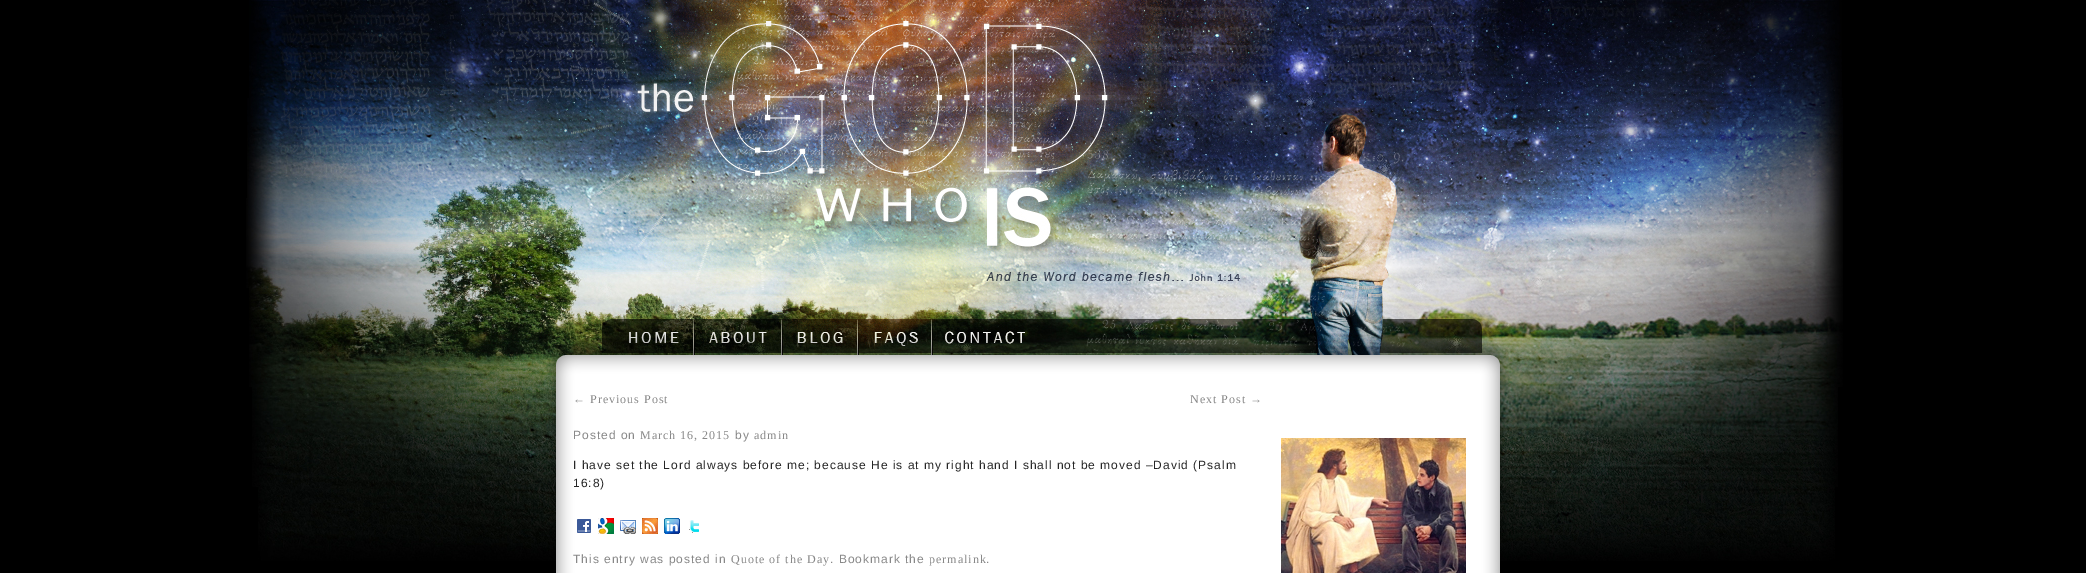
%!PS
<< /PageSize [2086 573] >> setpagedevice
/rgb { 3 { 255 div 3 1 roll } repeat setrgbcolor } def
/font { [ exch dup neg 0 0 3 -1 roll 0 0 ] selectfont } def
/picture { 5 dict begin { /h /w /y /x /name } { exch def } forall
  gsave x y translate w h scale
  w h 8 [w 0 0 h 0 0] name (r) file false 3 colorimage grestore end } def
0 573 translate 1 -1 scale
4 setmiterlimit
0 0 0 rgb
0 0 2086 573 rectfill
(img_01.rgb) 249 0 1593 98 picture
(img_02.rgb) 247 98 1596 100 picture
(img_03.rgb) 246 198 1597 90 picture
(img_04.rgb) 249 288 1594 99 picture
(img_11.rgb) 547 338 962 42 picture
(img_05.rgb) 602 319 92 34 picture
(img_06.rgb) 694 319 88 34 picture
(img_07.rgb) 782 319 76 34 picture
(img_08.rgb) 859 319 73 34 picture
(img_09.rgb) 932 321 105 32 picture
(img_10.rgb) 252 387 1586 100 picture
(img_20.rgb) 258 487 1577 74 picture
(img_12.rgb) 548 380 960 193 picture
(img_13.rgb) 577 519 14 14 picture
(img_14.rgb) 598 518 16 16 picture
(img_15.rgb) 620 520 16 14 picture
(img_16.rgb) 642 518 16 16 picture
(img_17.rgb) 664 518 16 16 picture
(img_18.rgb) 689 520 10 13 picture
(img_19.rgb) 1281 438 185 135 picture
/LiberationSerif-Regular 12 font
136 136 136 rgb
573 403 moveto 1 0 (← Previous Post) ashow
1190 403 moveto 1 0 (Next Post →) ashow
/LiberationSans-Regular 12 font
573 439 moveto 1 0 (Posted on) ashow
/LiberationSerif-Regular 12 font
640 439 moveto 1 0 (March 16, 2015) ashow
/LiberationSans-Regular 12 font
735 439 moveto 1 0 (by) ashow
/LiberationSerif-Regular 12 font
754 439 moveto 1 0 (admin) ashow
/LiberationSans-Regular 12 font
38 38 38 rgb
573 469 moveto 1 0 (I have set the Lord always before me; because He is at my right hand I shall not be moved –David \(Psalm) ashow
573 487 moveto 1 0 (16:8\)) ashow
136 136 136 rgb
573 563 moveto 1 0 (This entry was posted in) ashow
/LiberationSerif-Regular 12 font
731 563 moveto 1 0 (Quote of the Day) ashow
/LiberationSans-Regular 12 font
830 563 moveto 1 0 (. Bookmark the) ashow
/LiberationSerif-Regular 12 font
929 563 moveto 1 0 (permalink) ashow
/LiberationSans-Regular 12 font
986 563 moveto 1 0 (.) ashow
showpage
